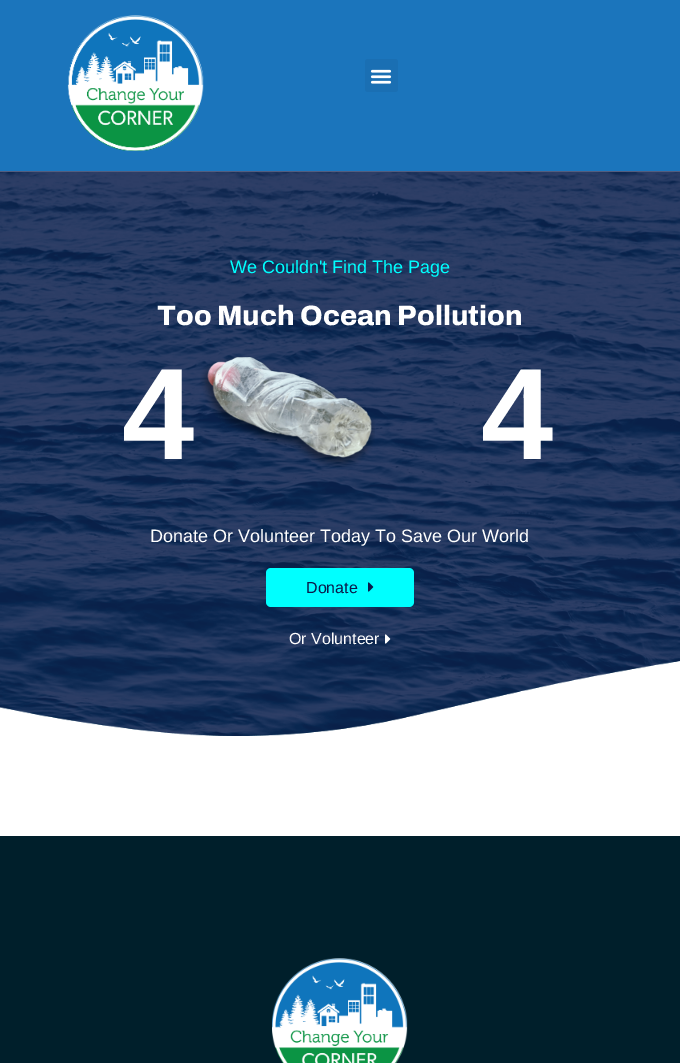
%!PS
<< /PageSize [680 1063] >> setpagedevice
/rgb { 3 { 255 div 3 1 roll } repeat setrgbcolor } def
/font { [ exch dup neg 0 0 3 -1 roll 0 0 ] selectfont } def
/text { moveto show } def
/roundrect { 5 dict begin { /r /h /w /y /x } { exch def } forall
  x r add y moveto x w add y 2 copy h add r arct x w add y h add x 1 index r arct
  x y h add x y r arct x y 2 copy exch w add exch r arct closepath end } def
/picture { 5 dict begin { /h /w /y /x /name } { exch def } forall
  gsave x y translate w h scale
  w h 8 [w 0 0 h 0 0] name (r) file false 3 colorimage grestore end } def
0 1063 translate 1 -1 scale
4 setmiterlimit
255 255 255 rgb
0 0 680 1063 rectfill
27 117 188 rgb
0 0 680 171 rectfill
82 93 127 rgb
0 171 680 1 rectfill
(img_01.rgb) 67 15 137 136 picture
26 111 179 rgb
365 59 33 33 3 roundrect fill
(img_02.rgb) 370 69 22 15 picture
(img_03.rgb) 0 172 680 564 picture
(img_04.rgb) 200 356 175 111 picture
0 255 255 rgb
266 568 148 39 5 roundrect fill
(img_05.rgb) 368 582 6 10 picture
(img_06.rgb) 385 634 6 10 picture
0 31 43 rgb
0 836 680 227 rectfill
(img_07.rgb) 272 958 136 105 picture
/LiberationSans-Regular 18 font
0 255 255 rgb
(We Couldn't Find The Page) 230 273 text
/Archivo-ExtraBold 28 font
255 255 255 rgb
(Too Much Ocean Pollution) 157 325 text
/LiberationSans-Bold 130 font
(4) 122 459 text
(4) 481 459 text
/LiberationSans-Regular 18 font
(Donate Or Volunteer Today To Save Our World) 150 542 text
/LiberationSans-Regular 16 font
11 26 74 rgb
(Donate) 306 593 text
255 255 255 rgb
(Or Volunteer) 289 644 text
showpage
